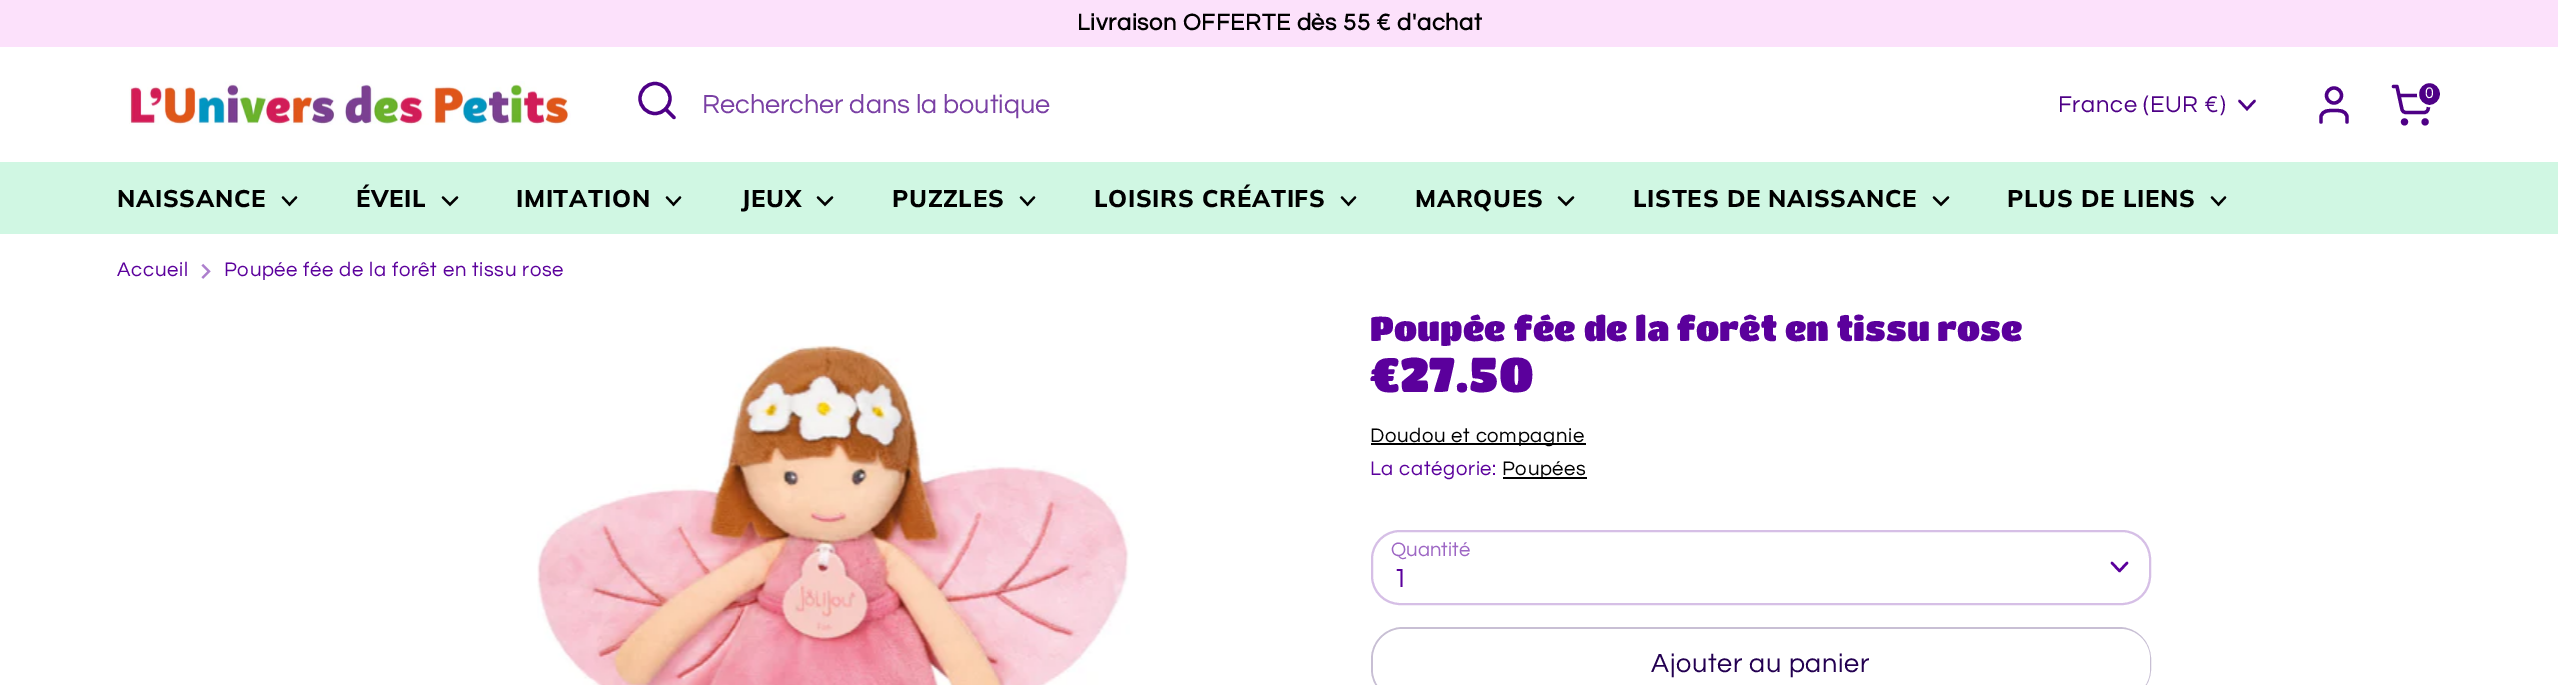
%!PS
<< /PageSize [2558 685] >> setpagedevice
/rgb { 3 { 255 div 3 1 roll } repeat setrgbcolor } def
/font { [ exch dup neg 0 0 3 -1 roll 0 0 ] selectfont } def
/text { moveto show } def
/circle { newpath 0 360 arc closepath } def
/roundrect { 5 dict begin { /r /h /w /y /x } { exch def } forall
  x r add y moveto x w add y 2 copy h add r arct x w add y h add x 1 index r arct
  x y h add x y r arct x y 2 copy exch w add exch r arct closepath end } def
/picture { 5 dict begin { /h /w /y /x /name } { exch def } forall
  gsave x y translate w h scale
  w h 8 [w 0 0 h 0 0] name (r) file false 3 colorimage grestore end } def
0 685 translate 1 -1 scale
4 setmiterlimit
255 255 255 rgb
0 0 2558 685 rectfill
252 225 251 rgb
0 0 2558 47 rectfill
(img_01.rgb) 129 81 442 44 picture
78 0 134 rgb
3.3 setlinewidth
655 98.5 15 circle stroke
1 setlinecap
1 setlinejoin
674 117.5 moveto -8.5 -8.5 rlineto stroke
2347 122 moveto 0 -5.5 rlineto -1.5 -6.5 -8 -6 -13 -6 rcurveto -5 0 -11.5 -0.5 -13 6 rcurveto 0 5.5 rlineto stroke
0 setlinecap
0 setlinejoin
2334 95.5 7.5 circle stroke
2404.5 121.9 1.9 circle stroke
2425.1 121.9 1.9 circle stroke
1 setlinecap
1 setlinejoin
2393.5 86.5 moveto 3.5 0 rlineto 5 23 rlineto 0.5 2 2 3 4 3 rcurveto 18 0 rlineto 2 0 3.5 -1 4 -3 rcurveto 3 -14 rlineto -32 0 rlineto stroke
2418 82 23 24 11.5 roundrect gsave fill grestore
255 255 255 rgb
2 setlinewidth
0 setlinecap
0 setlinejoin
stroke
78 0 134 rgb
2.5 setlinewidth
1 setlinecap
2239.5 101 moveto 7.5 8 rlineto 7.5 -8 rlineto stroke
208 247 227 rgb
0 162 2558 72 rectfill
0 0 0 rgb
2.2 setlinewidth
283 197.5 moveto 6.5 7 rlineto 6.5 -7 rlineto stroke
443 197.5 moveto 7 7 rlineto 7 -7 rlineto stroke
667 197.5 moveto 6.5 7 rlineto 6.5 -7 rlineto stroke
818 197.5 moveto 7 7 rlineto 7 -7 rlineto stroke
1021 197.5 moveto 6.5 7 rlineto 6.5 -7 rlineto stroke
1342 197.5 moveto 6.5 7 rlineto 6.5 -7 rlineto stroke
1559 197.5 moveto 7 7 rlineto 7 -7 rlineto stroke
1934 197.5 moveto 7 7 rlineto 7 -7 rlineto stroke
2212 197.5 moveto 6.5 7 rlineto 6.5 -7 rlineto stroke
(img_02.rgb) 201 263 10 16 picture
(img_03.rgb) 537 345 593 340 picture
1371 443 215 2 rectfill
1503 477 84 2 rectfill
214 191 230 rgb
2 setlinewidth
0 setlinecap
1372 531 778 73 28 roundrect stroke
91 0 156 rgb
2.5 setlinewidth
1 setlinecap
1 setlinejoin
2112 563 moveto 7.5 8 rlineto 7.5 -8 rlineto stroke
200 191 212 rgb
2 setlinewidth
0 setlinecap
0 setlinejoin
1372 628 778 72 31 roundrect stroke
255 255 255 rgb
1373 629 777 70 30 roundrect fill
/Questrial-Bold 23.6 font
0 0 0 rgb
1077 30 moveto 0.7 0 (Livraison OFFERTE dès 55 € d'achat) ashow
/Questrial-Regular 27 font
122 64 164 rgb
(Rechercher dans la boutique) 702 113 text
/Questrial-Regular 16 font
255 255 255 rgb
(0) 2425 98 text
/Questrial-Regular 23.6 font
78 0 134 rgb
2058 112 moveto 0.7 0 (France \(EUR €\)) ashow
/Muli-ExtraBold 24 font
0 0 0 rgb
117 207 moveto 0.7 0 (NAISSANCE) ashow
356 207 moveto 0.7 0 (ÉVEIL) ashow
516 207 moveto 0.7 0 (IMITATION) ashow
741 207 moveto 0.7 0 (JEUX) ashow
892 207 moveto 0.7 0 (PUZZLES) ashow
1094 207 moveto 0.7 0 (LOISIRS CRÉATIFS) ashow
1415 207 moveto 0.7 0 (MARQUES) ashow
1633 207 moveto 0.7 0 (LISTES DE NAISSANCE) ashow
2007 207 moveto 0.7 0 (PLUS DE LIENS) ashow
/Questrial-Regular 20.25 font
91 0 156 rgb
117 276 moveto 0.7 0 (Accueil) ashow
224 276 moveto 0.7 0 (Poupée fée de la forêt en tissu rose) ashow
/TitanOne-Regular 33.9 font
(Poupée fée de la forêt en tissu rose) 1370 341 text
/TitanOne-Regular 48 font
(€27.50) 1370 392 text
/Questrial-Regular 20.25 font
0 0 0 rgb
1370 442 moveto 0.7 0 (Doudou et compagnie) ashow
91 0 156 rgb
1370 475 moveto 0.7 0 (La catégorie:) ashow
0 0 0 rgb
1502 475 moveto 0.7 0 (Poupées) ashow
157 102 196 rgb
(Quantité) 1391 556 text
/Questrial-Regular 27 font
91 0 156 rgb
1393 587 moveto 0.7 0 (1) ashow
35 0 81 rgb
1651 672 moveto 0.7 0 (Ajouter au panier) ashow
showpage
